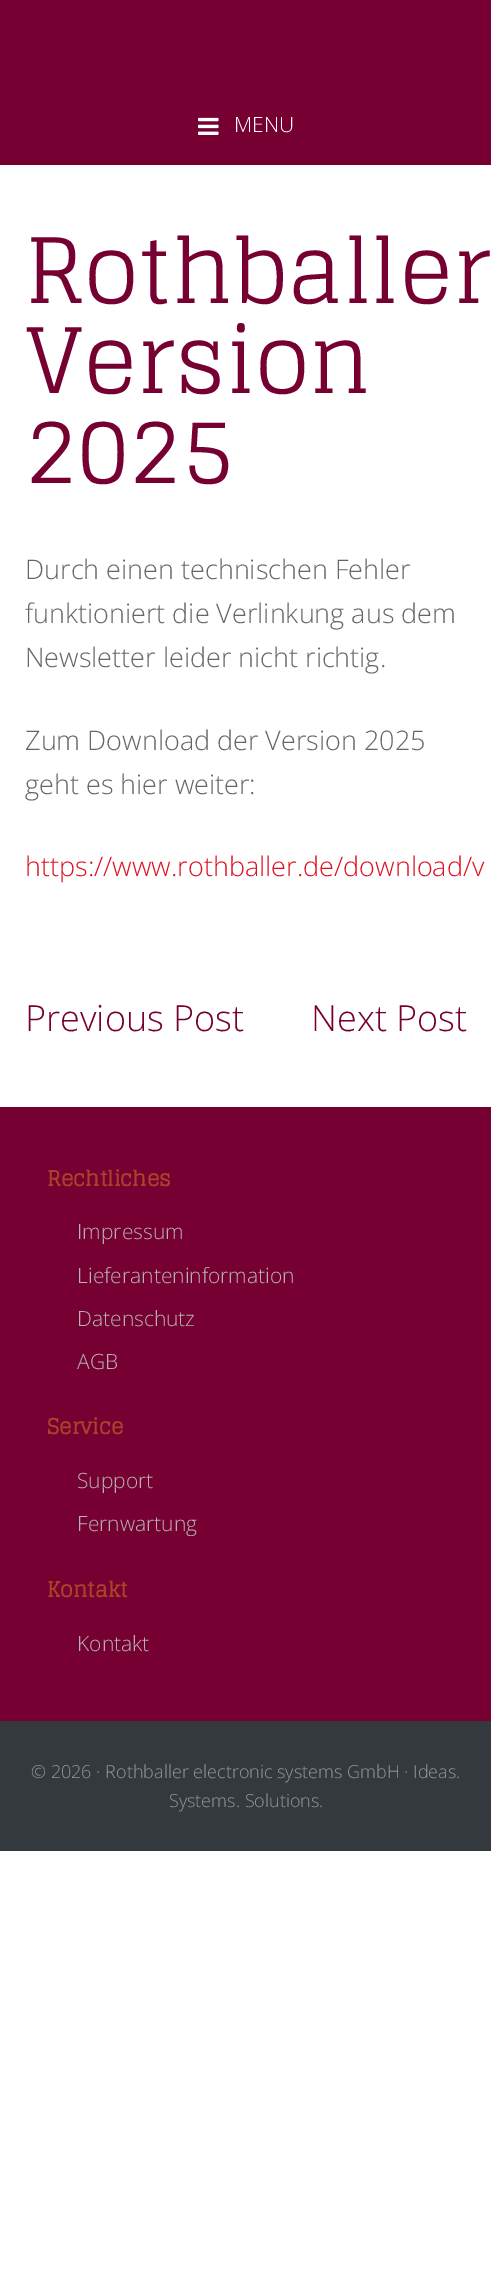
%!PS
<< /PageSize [491 2284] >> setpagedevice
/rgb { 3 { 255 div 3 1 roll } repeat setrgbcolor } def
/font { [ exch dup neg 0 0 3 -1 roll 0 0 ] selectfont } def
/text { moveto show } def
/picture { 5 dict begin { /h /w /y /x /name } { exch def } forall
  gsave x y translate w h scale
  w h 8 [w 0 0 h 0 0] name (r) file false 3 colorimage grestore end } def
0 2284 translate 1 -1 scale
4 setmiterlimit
255 255 255 rgb
0 0 491 2284 rectfill
119 0 51 rgb
0 0 491 165 rectfill
(img_01.rgb) 198 117 21 18 picture
0 1107 491 614 rectfill
52 57 62 rgb
0 1721 491 130 rectfill
/OpenSans-Light 21 font
255 255 255 rgb
(MENU) 234 132 text
/Glegoo-Regular 90 font
119 0 51 rgb
(Rothballer) 25 303 text
(Version) 25 393 text
(2025) 25 483 text
/OpenSans-Light 27 font
102 102 102 rgb
(Durch einen technischen Fehler) 25 579 text
(funktioniert die Verlinkung aus dem) 25 623 text
(Newsletter leider nicht richtig.) 25 667 text
(Zum Download der Version 2025) 25 750 text
(geht es hier weiter:) 25 794 text
221 17 34 rgb
(https://www.rothballer.de/download/v) 25 876 text
/OpenSans-Light 36 font
119 0 51 rgb
(Previous Post) 25 1031 text
(Next Post) 311 1031 text
/Glegoo-Bold 21 font
172 66 40 rgb
(Rechtliches) 47 1186 text
/OpenSans-Light 21 font
180 180 180 rgb
(Impressum) 77 1239 text
(Lieferanteninformation) 77 1283 text
(Datenschutz) 77 1326 text
(AGB) 77 1369 text
/Glegoo-Bold 21 font
172 66 40 rgb
(Service) 47 1434 text
/OpenSans-Light 21 font
180 180 180 rgb
(Support) 77 1488 text
(Fernwartung) 77 1531 text
/Glegoo-Bold 21 font
172 66 40 rgb
(Kontakt) 47 1597 text
/OpenSans-Light 21 font
180 180 180 rgb
(Kontakt) 77 1651 text
/OpenSans-Light 18 font
149 151 153 rgb
(© 2026 · Rothballer electronic systems GmbH · Ideas.) 31 1778 text
(Systems. Solutions.) 169 1807 text
showpage
